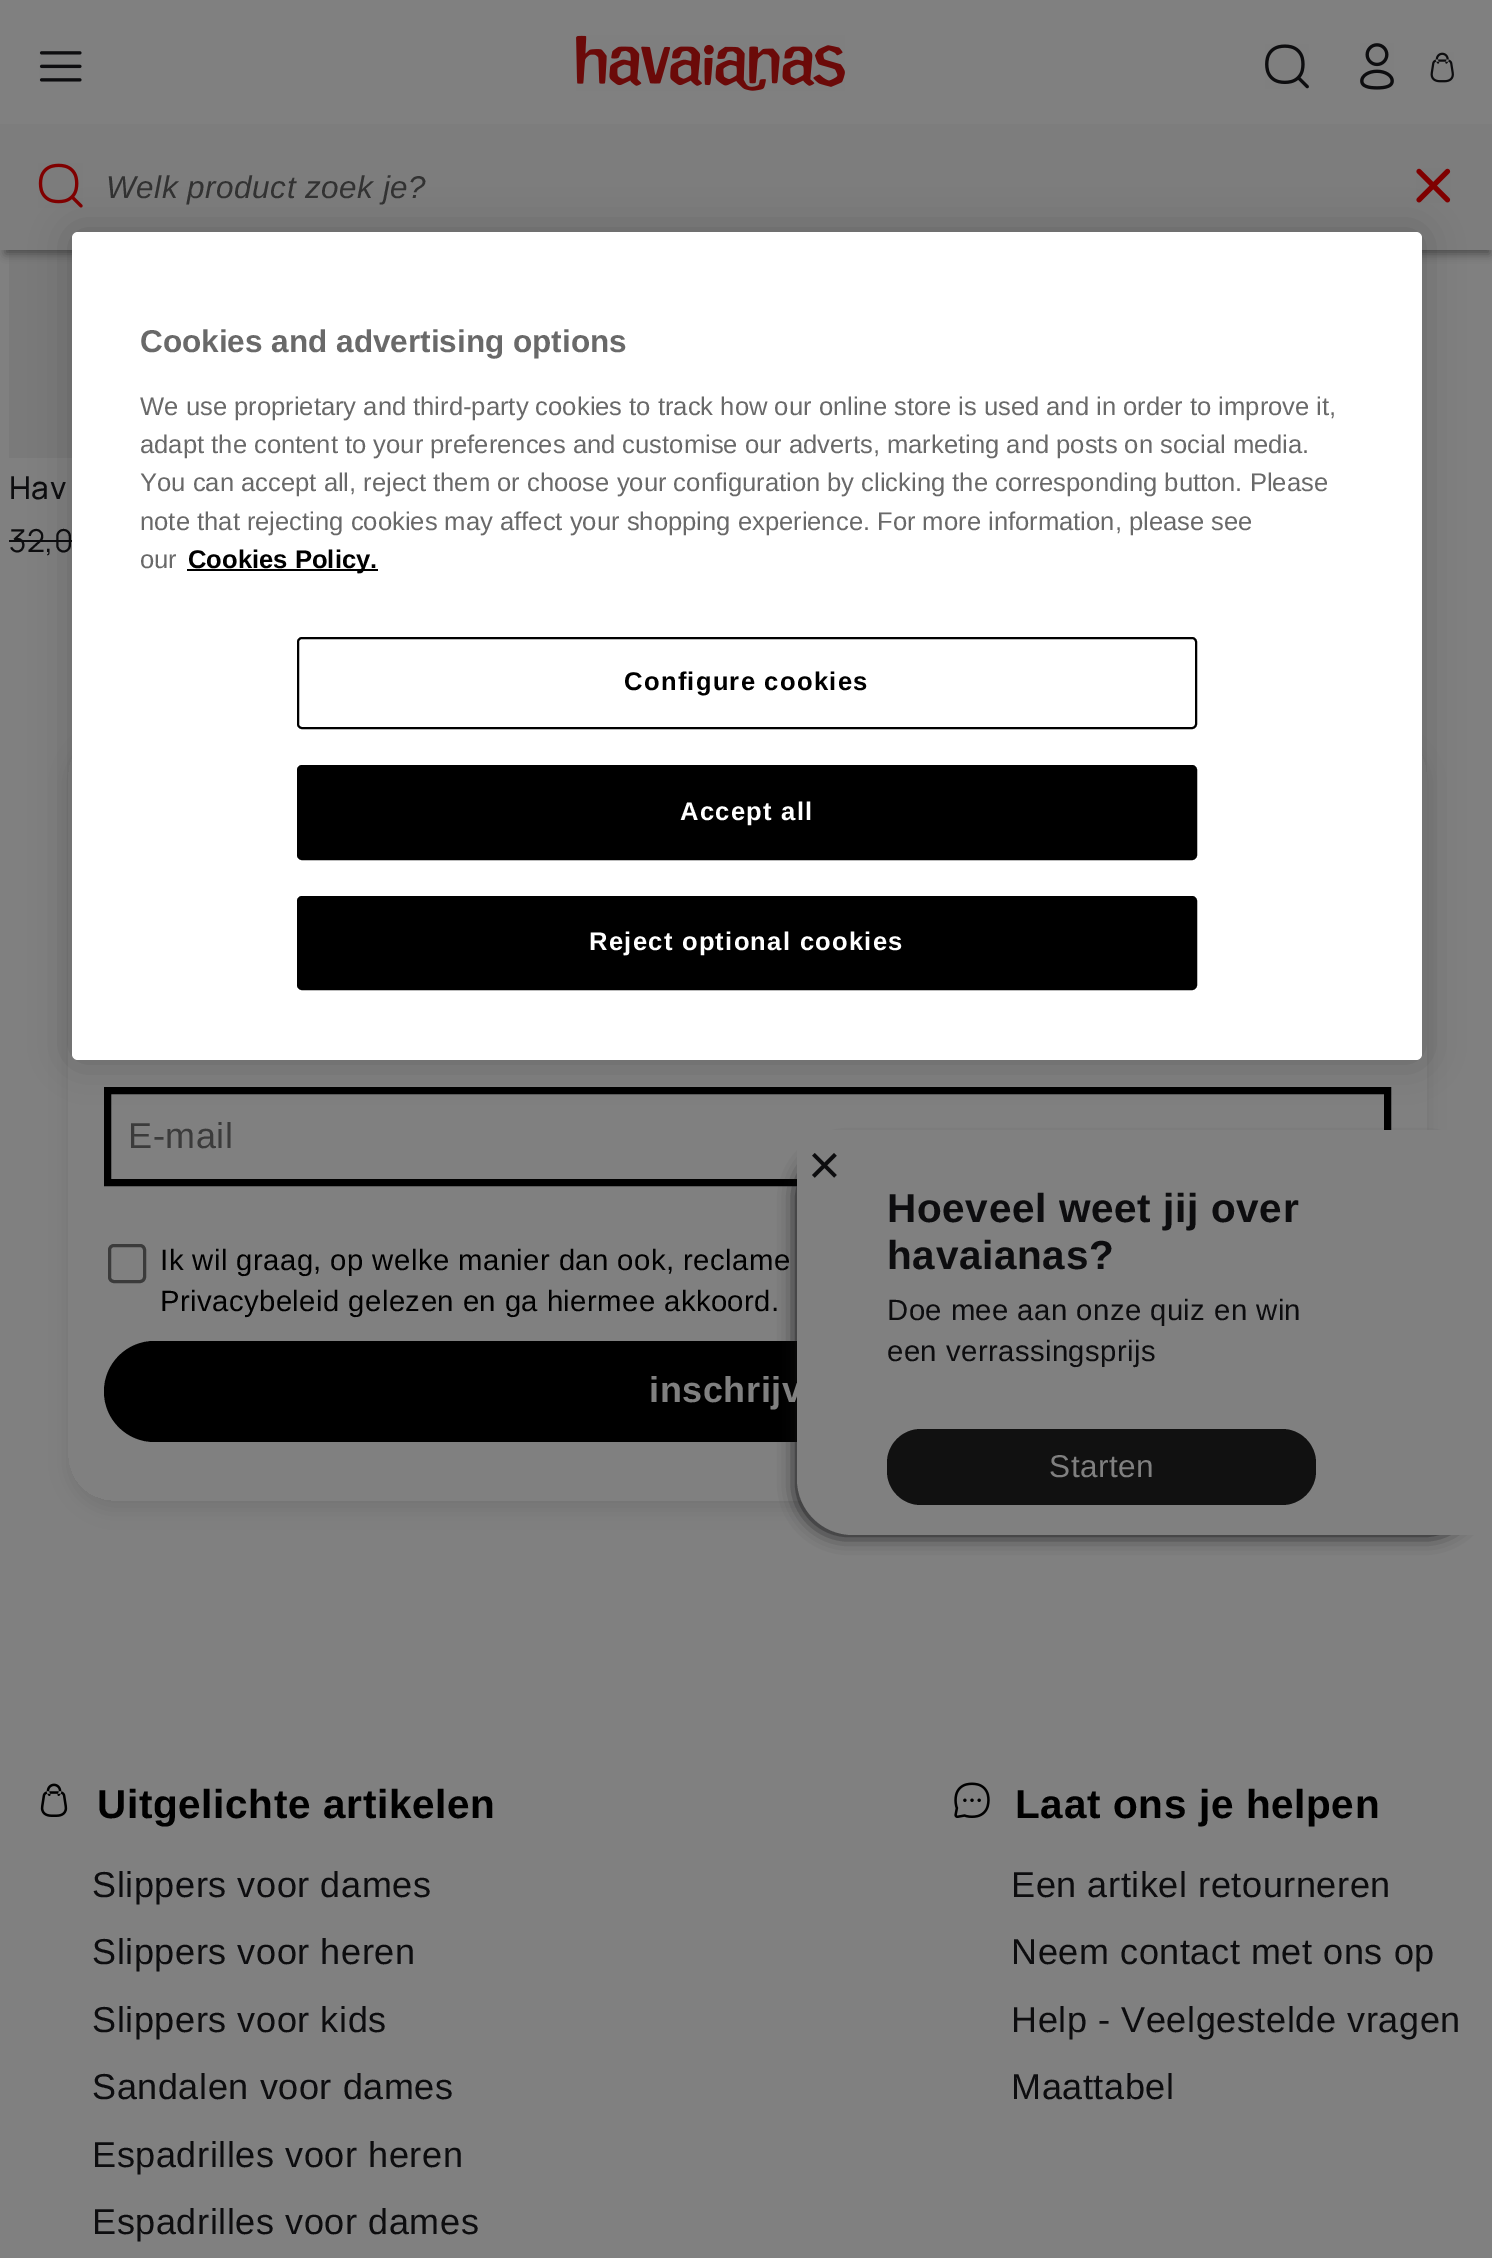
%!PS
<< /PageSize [1492 2258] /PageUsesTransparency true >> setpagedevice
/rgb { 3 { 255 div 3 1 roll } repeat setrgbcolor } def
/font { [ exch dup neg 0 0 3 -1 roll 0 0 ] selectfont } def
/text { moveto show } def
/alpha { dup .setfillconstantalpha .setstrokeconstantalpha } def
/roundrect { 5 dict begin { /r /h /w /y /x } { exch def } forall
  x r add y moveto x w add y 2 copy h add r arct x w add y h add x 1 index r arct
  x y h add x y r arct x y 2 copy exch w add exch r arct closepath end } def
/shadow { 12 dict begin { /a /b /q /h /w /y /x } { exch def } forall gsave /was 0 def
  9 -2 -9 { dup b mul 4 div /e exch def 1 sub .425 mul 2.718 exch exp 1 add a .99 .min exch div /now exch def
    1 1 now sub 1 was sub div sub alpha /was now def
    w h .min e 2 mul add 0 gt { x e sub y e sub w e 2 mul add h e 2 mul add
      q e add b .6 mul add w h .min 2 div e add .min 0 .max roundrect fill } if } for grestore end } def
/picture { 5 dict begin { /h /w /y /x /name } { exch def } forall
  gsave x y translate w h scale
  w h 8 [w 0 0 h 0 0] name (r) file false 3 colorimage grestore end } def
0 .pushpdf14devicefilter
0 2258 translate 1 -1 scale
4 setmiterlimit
128 128 128 rgb
0 0 1492 2258 rectfill
(img_01.rgb) 39 51 43 31 picture
(img_02.rgb) 576 35 269 56 picture
(img_03.rgb) 1265 44 44 45 picture
(img_04.rgb) 1360 43 34 47 picture
(img_05.rgb) 1430 52 24 31 picture
(img_08.rgb) 9 250 63 208 picture
77 77 77 rgb
5 137 1485 117 0 4.5 1 shadow
125 125 125 rgb
0 124 1492 126 rectfill
(img_06.rgb) 38 163 45 45 picture
(img_07.rgb) 1416 168 35 35 picture
13 13 15 rgb
9 540 63 2 rectfill
gsave
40 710 moveto 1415 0 rlineto 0 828 rlineto -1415 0 rlineto closepath 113 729 moveto 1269 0 rlineto 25 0 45 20 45 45 rcurveto 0 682 rlineto 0 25 -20 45 -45 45 rcurveto -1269 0 rlineto -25 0 -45 -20 -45 -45 rcurveto 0 -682 rlineto 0 -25 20 -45 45 -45 rcurveto closepath eoclip newpath
0 0 0 rgb
68 738 1359 772 45 9 0.1 shadow
grestore
0 0 0 rgb
7 setlinewidth
107.5 1090.5 1280 92 rectstroke
59 59 59 rgb
3 setlinewidth
109.5 1245.5 35 36 4.5 roundrect stroke
0 0 0 rgb
104 1341 1287 101 50.5 roundrect fill
13 13 15 rgb
797 1148 679 387 47 9 1 shadow
128 128 128 rgb
797 1130 moveto 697 0 rlineto 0 405 rlineto -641 0 rlineto -31 0 -56 -25 -56 -56 rcurveto closepath fill
17 17 17 rgb
887 1429 429 76 34 roundrect fill
(img_09.rgb) 40 1783 28 34 picture
(img_10.rgb) 954 1782 36 36 picture
0 0 0 rgb
72 232 1350 828 6 20 0.2 shadow
255 255 255 rgb
72 232 1350 828 6 roundrect fill
0 0 0 rgb
187 569 191 2 rectfill
2 setlinewidth
298 638 898 90 4 roundrect stroke
298 766 898 93 4 roundrect gsave fill grestore
stroke
298 897 898 92 4 roundrect gsave fill grestore
stroke
/LiberationSans-Italic 31.5 font
50 50 50 rgb
106 198 moveto 0.5 0 (Welk product zoek je?) ashow
/Manrope-Medium 31.5 font
13 13 15 rgb
9 499 moveto 0.5 0 (Hav) ashow
/Manrope-Regular 31.5 font
9 552 moveto 0.5 0 (32,0) ashow
/LiberationSans-Regular 36 font
59 59 59 rgb
128 1148 moveto 0.6 0 (E-mail) ashow
/LiberationSans-Regular 29.25 font
0 0 0 rgb
160 1270 moveto 0.45 0 (Ik wil graag, op welke manier dan ook, reclame) ashow
160 1311 moveto 0.45 0 (Privacybeleid gelezen en ga hiermee akkoord.) ashow
/LiberationSans-Bold 36 font
128 128 128 rgb
649 1402 moveto 0.6 0 (inschrijv) ashow
/LiberationSans-Regular 56 font
13 13 15 rgb
808 1184 moveto 1 0 (×) ashow
/LiberationSans-Bold 40.5 font
887 1222 moveto 0.65 0 (Hoeveel weet jij over) ashow
887 1269 moveto 0.65 0 (havaianas?) ashow
/LiberationSans-Regular 29.25 font
887 1320 moveto 0.45 0 (Doe mee aan onze quiz en win) ashow
887 1361 moveto 0.45 0 (een verrassingsprijs) ashow
/LiberationSans-Regular 31.5 font
128 128 128 rgb
1049 1477 moveto 0.5 0 (Starten) ashow
/LiberationSans-Bold 40.5 font
0 0 0 rgb
97 1818 moveto 0.65 0 (Uitgelichte artikelen) ashow
/LiberationSans-Regular 36 font
13 13 15 rgb
92 1897 moveto 0.6 0 (Slippers voor dames) ashow
92 1964 moveto 0.6 0 (Slippers voor heren) ashow
92 2032 moveto 0.6 0 (Slippers voor kids) ashow
92 2099 moveto 0.6 0 (Sandalen voor dames) ashow
92 2167 moveto 0.6 0 (Espadrilles voor heren) ashow
92 2234 moveto 0.6 0 (Espadrilles voor dames) ashow
/LiberationSans-Bold 40.5 font
0 0 0 rgb
1015 1818 moveto 0.65 0 (Laat ons je helpen) ashow
/LiberationSans-Regular 36 font
13 13 15 rgb
1011 1897 moveto 0.6 0 (Een artikel retourneren) ashow
1011 1964 moveto 0.6 0 (Neem contact met ons op) ashow
1011 2032 moveto 0.6 0 (Help - Veelgestelde vragen) ashow
1011 2099 moveto 0.6 0 (Maattabel) ashow
/LiberationSans-Bold 31.5 font
105 105 105 rgb
(Cookies and advertising options) 140 352 text
/LiberationSans-Regular 25.6 font
(We use proprietary and third-party cookies to track how our online store is used and in order to improve it,) 140 415 text
(adapt the content to your preferences and customise our adverts, marketing and posts on social media.) 140 453 text
(You can accept all, reject them or choose your configuration by clicking the corresponding button. Please) 140 491 text
(note that rejecting cookies may affect your shopping experience. For more information, please see) 140 530 text
(our) 140 568 text
/LiberationSans-Bold 25.6 font
0 0 0 rgb
(Cookies Policy.) 188 568 text
624 690 moveto 1.25 0 (Configure cookies) ashow
255 255 255 rgb
680 820 moveto 1.25 0 (Accept all) ashow
589 950 moveto 1.25 0 (Reject optional cookies) ashow
.poppdf14devicefilter showpage
